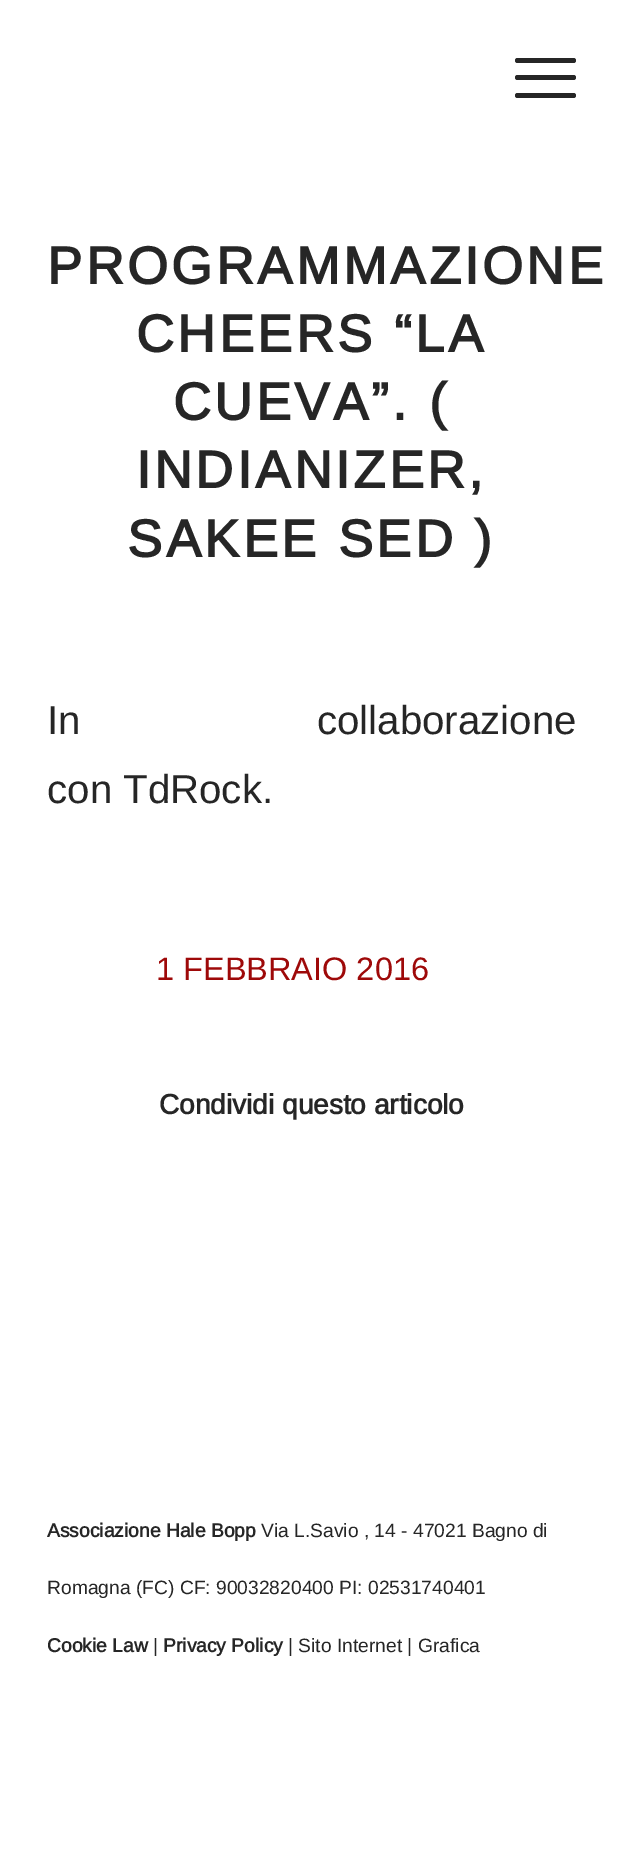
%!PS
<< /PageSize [623 1873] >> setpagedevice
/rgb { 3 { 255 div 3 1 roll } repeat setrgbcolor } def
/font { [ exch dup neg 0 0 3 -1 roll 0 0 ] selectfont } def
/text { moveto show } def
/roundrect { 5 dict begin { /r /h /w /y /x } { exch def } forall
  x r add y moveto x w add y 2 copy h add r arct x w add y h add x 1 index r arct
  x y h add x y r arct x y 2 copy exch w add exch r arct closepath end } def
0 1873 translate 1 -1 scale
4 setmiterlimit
255 255 255 rgb
0 0 623 1873 rectfill
38 38 38 rgb
515 75 61 5 2.5 roundrect fill
515 58 61 5 2.5 roundrect fill
515 93 61 5 2.5 roundrect fill
/Arimo-Bold 52.5 font
47 284 moveto 3.5 0 (PROGRAMMAZIONE) ashow
136 352 moveto 3.5 0 (CHEERS “LA) ashow
173 420 moveto 3.5 0 (CUEVA”. \() ashow
136 488 moveto 3.5 0 (INDIANIZER,) ashow
127 557 moveto 3.5 0 (SAKEE SED \)) ashow
/Arimo-Regular 40.25 font
47 734 moveto 225 0 32 (In collaborazione) widthshow
(con TdRock.) 47 803 text
/Arimo-Regular 32.5 font
158 9 9 rgb
(1 FEBBRAIO 2016) 156 980 text
/Arimo-Bold 28 font
38 38 38 rgb
(Condividi questo articolo) 159 1114 text
/Arimo-Bold 19.25 font
(Associazione Hale Bopp) 47 1537 text
/Arimo-Regular 19.25 font
(Via L.Savio , 14 - 47021 Bagno di) 261 1537 text
(Romagna \(FC\) CF: 90032820400 PI: 02531740401) 47 1594 text
/Arimo-Bold 19.25 font
(Cookie Law) 47 1652 text
/Arimo-Regular 19.25 font
(|) 153 1652 text
/Arimo-Bold 19.25 font
(Privacy Policy) 163 1652 text
/Arimo-Regular 19.25 font
(| Sito Internet | Grafica) 288 1652 text
showpage
